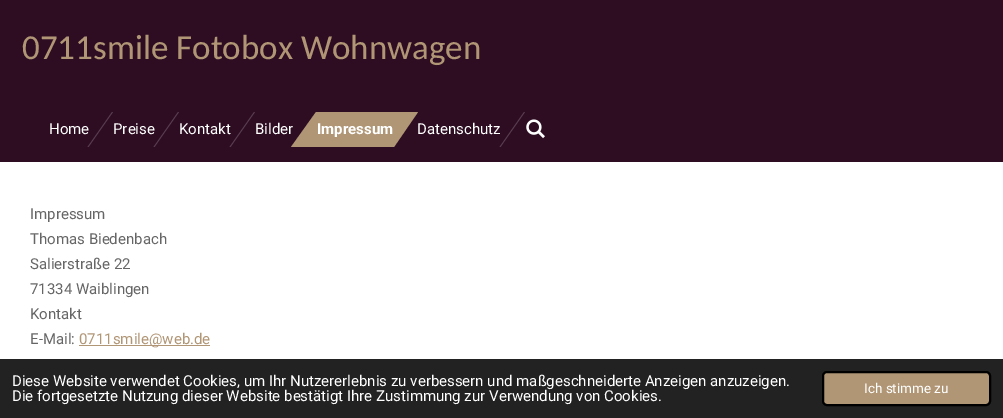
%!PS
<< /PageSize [1003 418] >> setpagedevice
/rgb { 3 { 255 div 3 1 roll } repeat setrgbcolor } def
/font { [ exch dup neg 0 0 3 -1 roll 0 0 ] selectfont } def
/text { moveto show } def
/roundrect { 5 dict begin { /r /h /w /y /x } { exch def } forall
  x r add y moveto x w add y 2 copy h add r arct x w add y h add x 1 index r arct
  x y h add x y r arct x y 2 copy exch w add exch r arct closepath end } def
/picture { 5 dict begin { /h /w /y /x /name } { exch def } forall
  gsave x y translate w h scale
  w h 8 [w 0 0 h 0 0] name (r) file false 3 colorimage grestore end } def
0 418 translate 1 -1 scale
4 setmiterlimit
255 255 255 rgb
0 0 1003 418 rectfill
46 13 35 rgb
0 0 1003 162 rectfill
88 61 79 rgb
112 112 moveto 1 0 rlineto -24.5 35 rlineto -1 0 rlineto closepath fill
178 112 moveto 1 0 rlineto -24.5 35 rlineto -1 0 rlineto closepath fill
254 112 moveto 1 0 rlineto -24.5 35 rlineto -1 0 rlineto closepath fill
524 112 moveto 1 0 rlineto -24.5 35 rlineto -1 0 rlineto closepath fill
(img_01.rgb) 526 119 19 20 picture
177 150 118 rgb
79 345 131 1 rectfill
34 34 34 rgb
0 359 1003 59 rectfill
177 150 118 rgb
823 372 167 33 4 roundrect gsave fill grestore
0 0 0 rgb
2 setlinewidth
stroke
/Carlito-Regular 35 font
177 150 118 rgb
(0711smile Fotobox Wohnwagen) 22 59 text
/Roboto-Regular 15 font
255 255 255 rgb
(Home) 49 134 text
(Preise) 113 134 text
(Kontakt) 179 134 text
(Bilder) 255 134 text
177 150 118 rgb
316 112 moveto 102 0 rlineto -24 35 rlineto -103 0 rlineto closepath fill
/Roboto-Bold 15 font
255 255 255 rgb
(Impressum) 317 134 text
/Roboto-Regular 15 font
(Datenschutz) 417 134 text
102 102 102 rgb
(Impressum) 30 219 text
(Thomas Biedenbach) 30 244 text
(Salierstraße 22) 30 269 text
(71334 Waiblingen) 30 294 text
(Kontakt) 30 319 text
(E-Mail:) 30 344 text
177 150 118 rgb
(0711smile@web.de) 79 344 text
255 255 255 rgb
(Diese Website verwendet Cookies, um Ihr Nutzererlebnis zu verbessern und maßgeschneiderte Anzeigen anzuzeigen.) 12 386 text
(Die fortgesetzte Nutzung dieser Website bestätigt Ihre Zustimmung zur Verwendung von Cookies.) 12 401 text
/Roboto-Regular 13.5 font
(Ich stimme zu) 864 393 text
showpage
